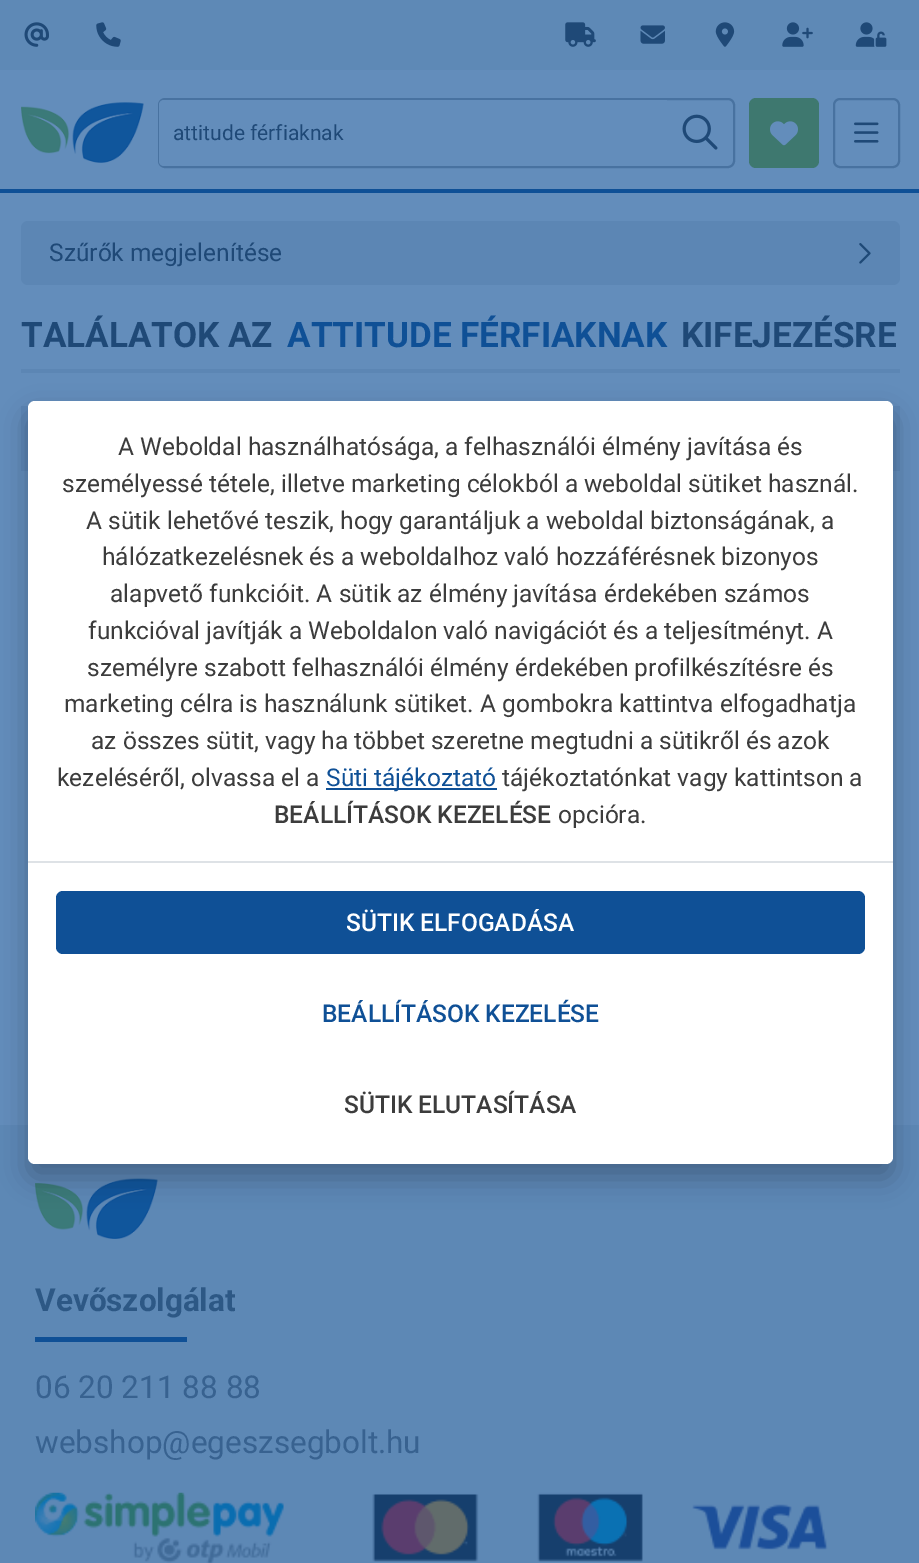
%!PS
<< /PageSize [919 1563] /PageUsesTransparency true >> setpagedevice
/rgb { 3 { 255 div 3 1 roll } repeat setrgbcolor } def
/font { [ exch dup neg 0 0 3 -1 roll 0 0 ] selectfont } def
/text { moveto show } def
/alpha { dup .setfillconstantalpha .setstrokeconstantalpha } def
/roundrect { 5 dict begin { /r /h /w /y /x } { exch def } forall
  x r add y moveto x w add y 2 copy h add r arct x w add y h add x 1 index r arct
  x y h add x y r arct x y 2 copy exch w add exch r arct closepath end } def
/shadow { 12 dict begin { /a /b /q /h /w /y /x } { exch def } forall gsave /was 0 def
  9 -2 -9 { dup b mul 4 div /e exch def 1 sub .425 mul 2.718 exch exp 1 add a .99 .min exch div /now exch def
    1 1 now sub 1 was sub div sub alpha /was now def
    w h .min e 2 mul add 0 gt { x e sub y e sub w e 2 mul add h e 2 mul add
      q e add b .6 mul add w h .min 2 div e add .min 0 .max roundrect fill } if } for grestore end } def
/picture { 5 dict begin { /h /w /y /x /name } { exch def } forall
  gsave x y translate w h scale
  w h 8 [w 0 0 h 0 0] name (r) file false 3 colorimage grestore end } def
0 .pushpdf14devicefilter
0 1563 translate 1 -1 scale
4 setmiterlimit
99 141 187 rgb
0 0 919 1563 rectfill
94 137 182 rgb
0 0 919 70 rectfill
(img_01.rgb) 24 22 25 25 picture
(img_02.rgb) 96 22 25 25 picture
(img_03.rgb) 565 22 31 25 picture
(img_04.rgb) 640 25 25 19 picture
(img_05.rgb) 715 22 20 25 picture
(img_06.rgb) 782 22 31 25 picture
(img_07.rgb) 855 22 32 25 picture
15 80 150 rgb
0 189 919 4 rectfill
(img_08.rgb) 21 102 123 61 picture
72 114 160 rgb
2 setlinewidth
159 99 575 68 6 roundrect stroke
99 141 187 rgb
164 100 moveto 503 0 rlineto 0 66 rlineto -503 0 rlineto -3 0 -5 -2 -5 -5 rcurveto 0 -56 rlineto 0 -3 2 -5 5 -5 rcurveto closepath fill
(img_09.rgb) 682 114 36 36 picture
62 120 111 rgb
749 98 70 70 7 roundrect fill
(img_10.rgb) 770 121 28 25 picture
72 114 160 rgb
834 99 65 68 6 roundrect stroke
(img_11.rgb) 854 122 25 21 picture
92 134 180 rgb
21 221 879 64 7 roundrect fill
(img_12.rgb) 859 243 12 21 picture
21 369 879 4 rectfill
21 406 879 65 rectfill
93 136 181 rgb
0 1125 919 438 rectfill
(img_13.rgb) 35 1178 123 61 picture
0 0 0 rgb
28 415 865 763 7 14 0.25 shadow
255 255 255 rgb
28 401 865 763 7 roundrect fill
15 80 150 rgb
326 788 171 2 rectfill
222 226 230 rgb
28 861 865 2 rectfill
15 80 150 rgb
56 891 809 63 7 roundrect fill
35 1337 152 5 rectfill
(img_14.rgb) 35 1492 793 71 picture
/Roboto-Regular 21 font
31 73 119 rgb
(attitude férfiaknak) 173 140 text
/Roboto-Regular 24.5 font
(Szűrők megjelenítése) 49 261 text
/Roboto-Bold 35 font
(TALÁLATOK AZ) 21 347 text
15 80 150 rgb
(ATTITUDE FÉRFIAKNAK) 287 347 text
31 73 119 rgb
(KIFEJEZÉSRE) 681 347 text
/Roboto-Regular 24.5 font
60 60 60 rgb
(A Weboldal használhatósága, a felhasználói élmény javítása és) 118 455 text
(személyessé tétele, illetve marketing célokból a weboldal sütiket használ.) 62 492 text
(A sütik lehetővé teszik, hogy garantáljuk a weboldal biztonságának, a) 86 529 text
(hálózatkezelésnek és a weboldalhoz való hozzáférésnek bizonyos) 102 565 text
(alapvető funkcióit. A sütik az élmény javítása érdekében számos) 110 602 text
(funkcióval javítják a Weboldalon való navigációt és a teljesítményt. A) 88 639 text
(személyre szabott felhasználói élmény érdekében profilkészítésre és) 87 676 text
(marketing célra is használunk sütiket. A gombokra kattintva elfogadhatja) 64 712 text
(az összes sütit, vagy ha többet szeretne megtudni a sütikről és azok) 91 749 text
(kezeléséről, olvassa el a) 57 786 text
15 80 150 rgb
(Süti tájékoztató) 326 786 text
60 60 60 rgb
(tájékoztatónkat vagy kattintson a) 502 786 text
/Roboto-Medium 24.5 font
(BEÁLLÍTÁSOK KEZELÉSE) 274 823 text
/Roboto-Regular 24.5 font
(opcióra.) 558 823 text
/Roboto-Medium 24.5 font
255 255 255 rgb
(SÜTIK ELFOGADÁSA) 346 931 text
15 80 150 rgb
(BEÁLLÍTÁSOK KEZELÉSE) 322 1022 text
60 60 60 rgb
(SÜTIK ELUTASÍTÁSA) 344 1113 text
/Roboto-Bold 31.5 font
45 88 133 rgb
(Vevőszolgálat) 35 1311 text
/Roboto-Regular 31.5 font
56 98 144 rgb
(06 20 211 88 88) 35 1398 text
(webshop@egeszsegbolt.hu) 35 1453 text
.poppdf14devicefilter showpage
